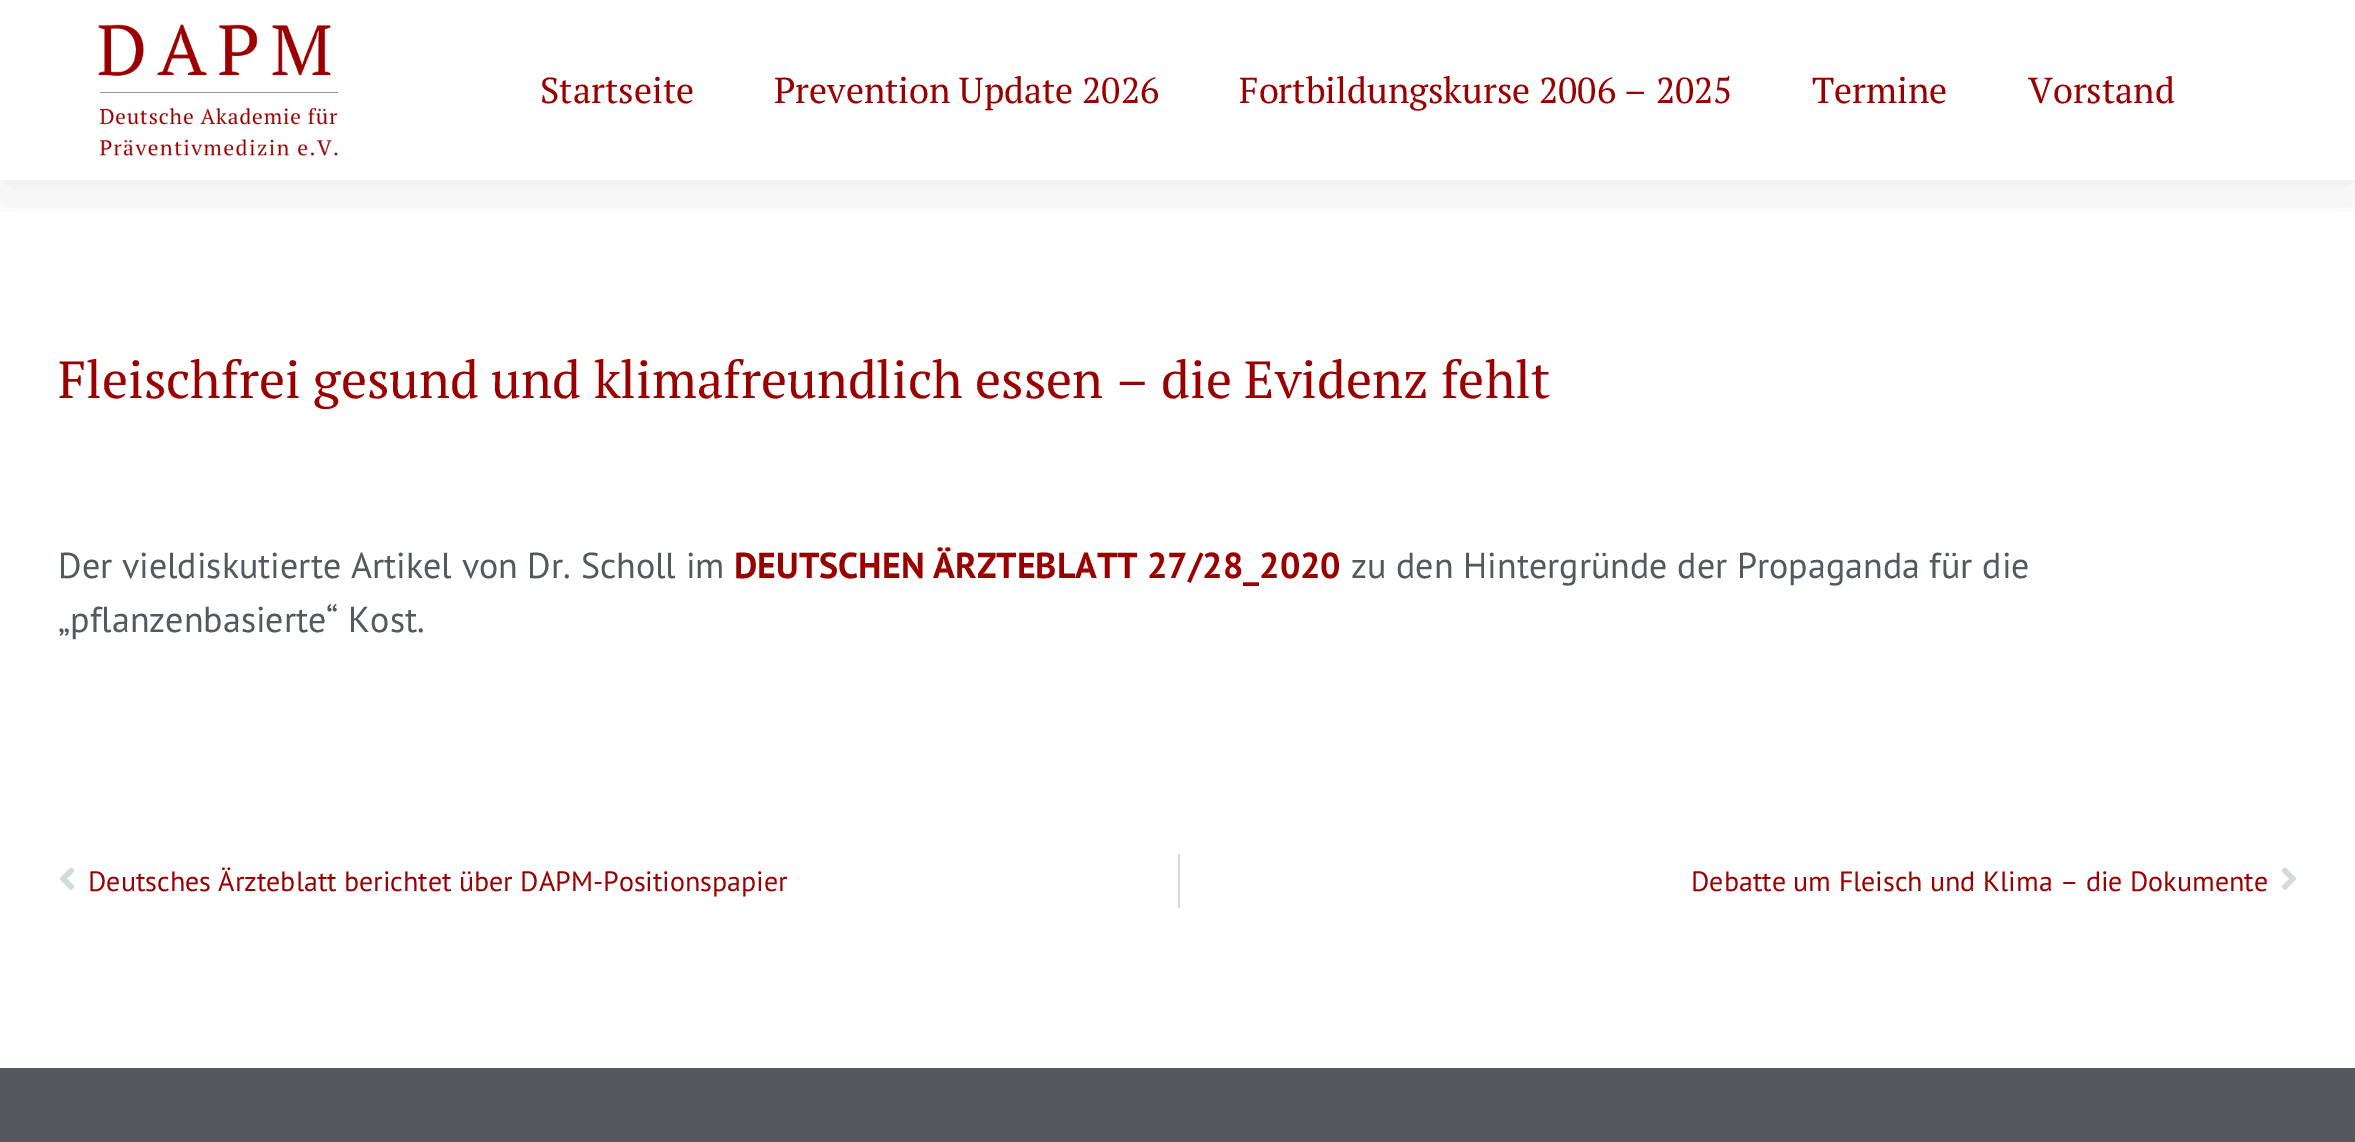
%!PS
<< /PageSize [2355 1142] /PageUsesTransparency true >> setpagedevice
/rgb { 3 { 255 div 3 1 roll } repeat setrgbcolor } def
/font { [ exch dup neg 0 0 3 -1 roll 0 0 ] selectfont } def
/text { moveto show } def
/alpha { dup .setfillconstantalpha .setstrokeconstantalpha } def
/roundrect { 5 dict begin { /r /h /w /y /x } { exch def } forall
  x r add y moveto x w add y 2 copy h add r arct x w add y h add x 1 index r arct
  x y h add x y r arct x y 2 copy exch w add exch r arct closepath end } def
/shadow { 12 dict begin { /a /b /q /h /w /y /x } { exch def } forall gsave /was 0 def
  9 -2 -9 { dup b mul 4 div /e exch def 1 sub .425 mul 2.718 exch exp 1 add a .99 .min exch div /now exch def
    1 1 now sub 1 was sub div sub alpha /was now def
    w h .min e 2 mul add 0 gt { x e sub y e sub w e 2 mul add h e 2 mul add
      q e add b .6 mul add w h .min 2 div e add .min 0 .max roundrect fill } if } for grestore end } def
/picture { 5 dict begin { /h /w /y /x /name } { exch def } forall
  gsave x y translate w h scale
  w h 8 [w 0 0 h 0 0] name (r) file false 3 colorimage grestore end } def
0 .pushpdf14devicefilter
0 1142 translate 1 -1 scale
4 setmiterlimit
255 255 255 rgb
0 0 2355 1142 rectfill
gsave
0 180 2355 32 rectclip
0 0 0 rgb
0 0 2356 180 0 38 0.1 shadow
grestore
(img_01.rgb) 98 24 240 132 picture
(img_02.rgb) 59 867 16 23 picture
213 216 220 rgb
1178 854 2 54 rectfill
(img_03.rgb) 2281 867 16 23 picture
84 89 95 rgb
0 1068 2355 74 rectfill
/PTSerif-Regular 36 font
155 0 0 rgb
(Startseite) 540 103 text
(Prevention Update 2026) 774 103 text
(Fortbildungskurse 2006 – 2025) 1239 103 text
(Termine) 1812 103 text
(Vorstand) 2028 103 text
/PTSerif-Regular 52 font
(Fleischfrei gesund und klimafreundlich essen – die Evidenz fehlt) 58 398 text
/PTSans-Regular 36 font
84 89 95 rgb
(Der vieldiskutierte Artikel von Dr. Scholl im) 58 578 text
/PTSans-Bold 36 font
155 0 0 rgb
(DEUTSCHEN ÄRZTEBLATT 27/28_2020) 734 578 text
/PTSans-Regular 36 font
84 89 95 rgb
(zu den Hintergründe der Propaganda für die) 1351 578 text
(„pflanzenbasierte“ Kost.) 58 632 text
/PTSans-Regular 28 font
155 0 0 rgb
(Deutsches Ärzteblatt berichtet über DAPM-Positionspapier) 88 891 text
(Debatte um Fleisch und Klima – die Dokumente) 1691 891 text
.poppdf14devicefilter showpage
